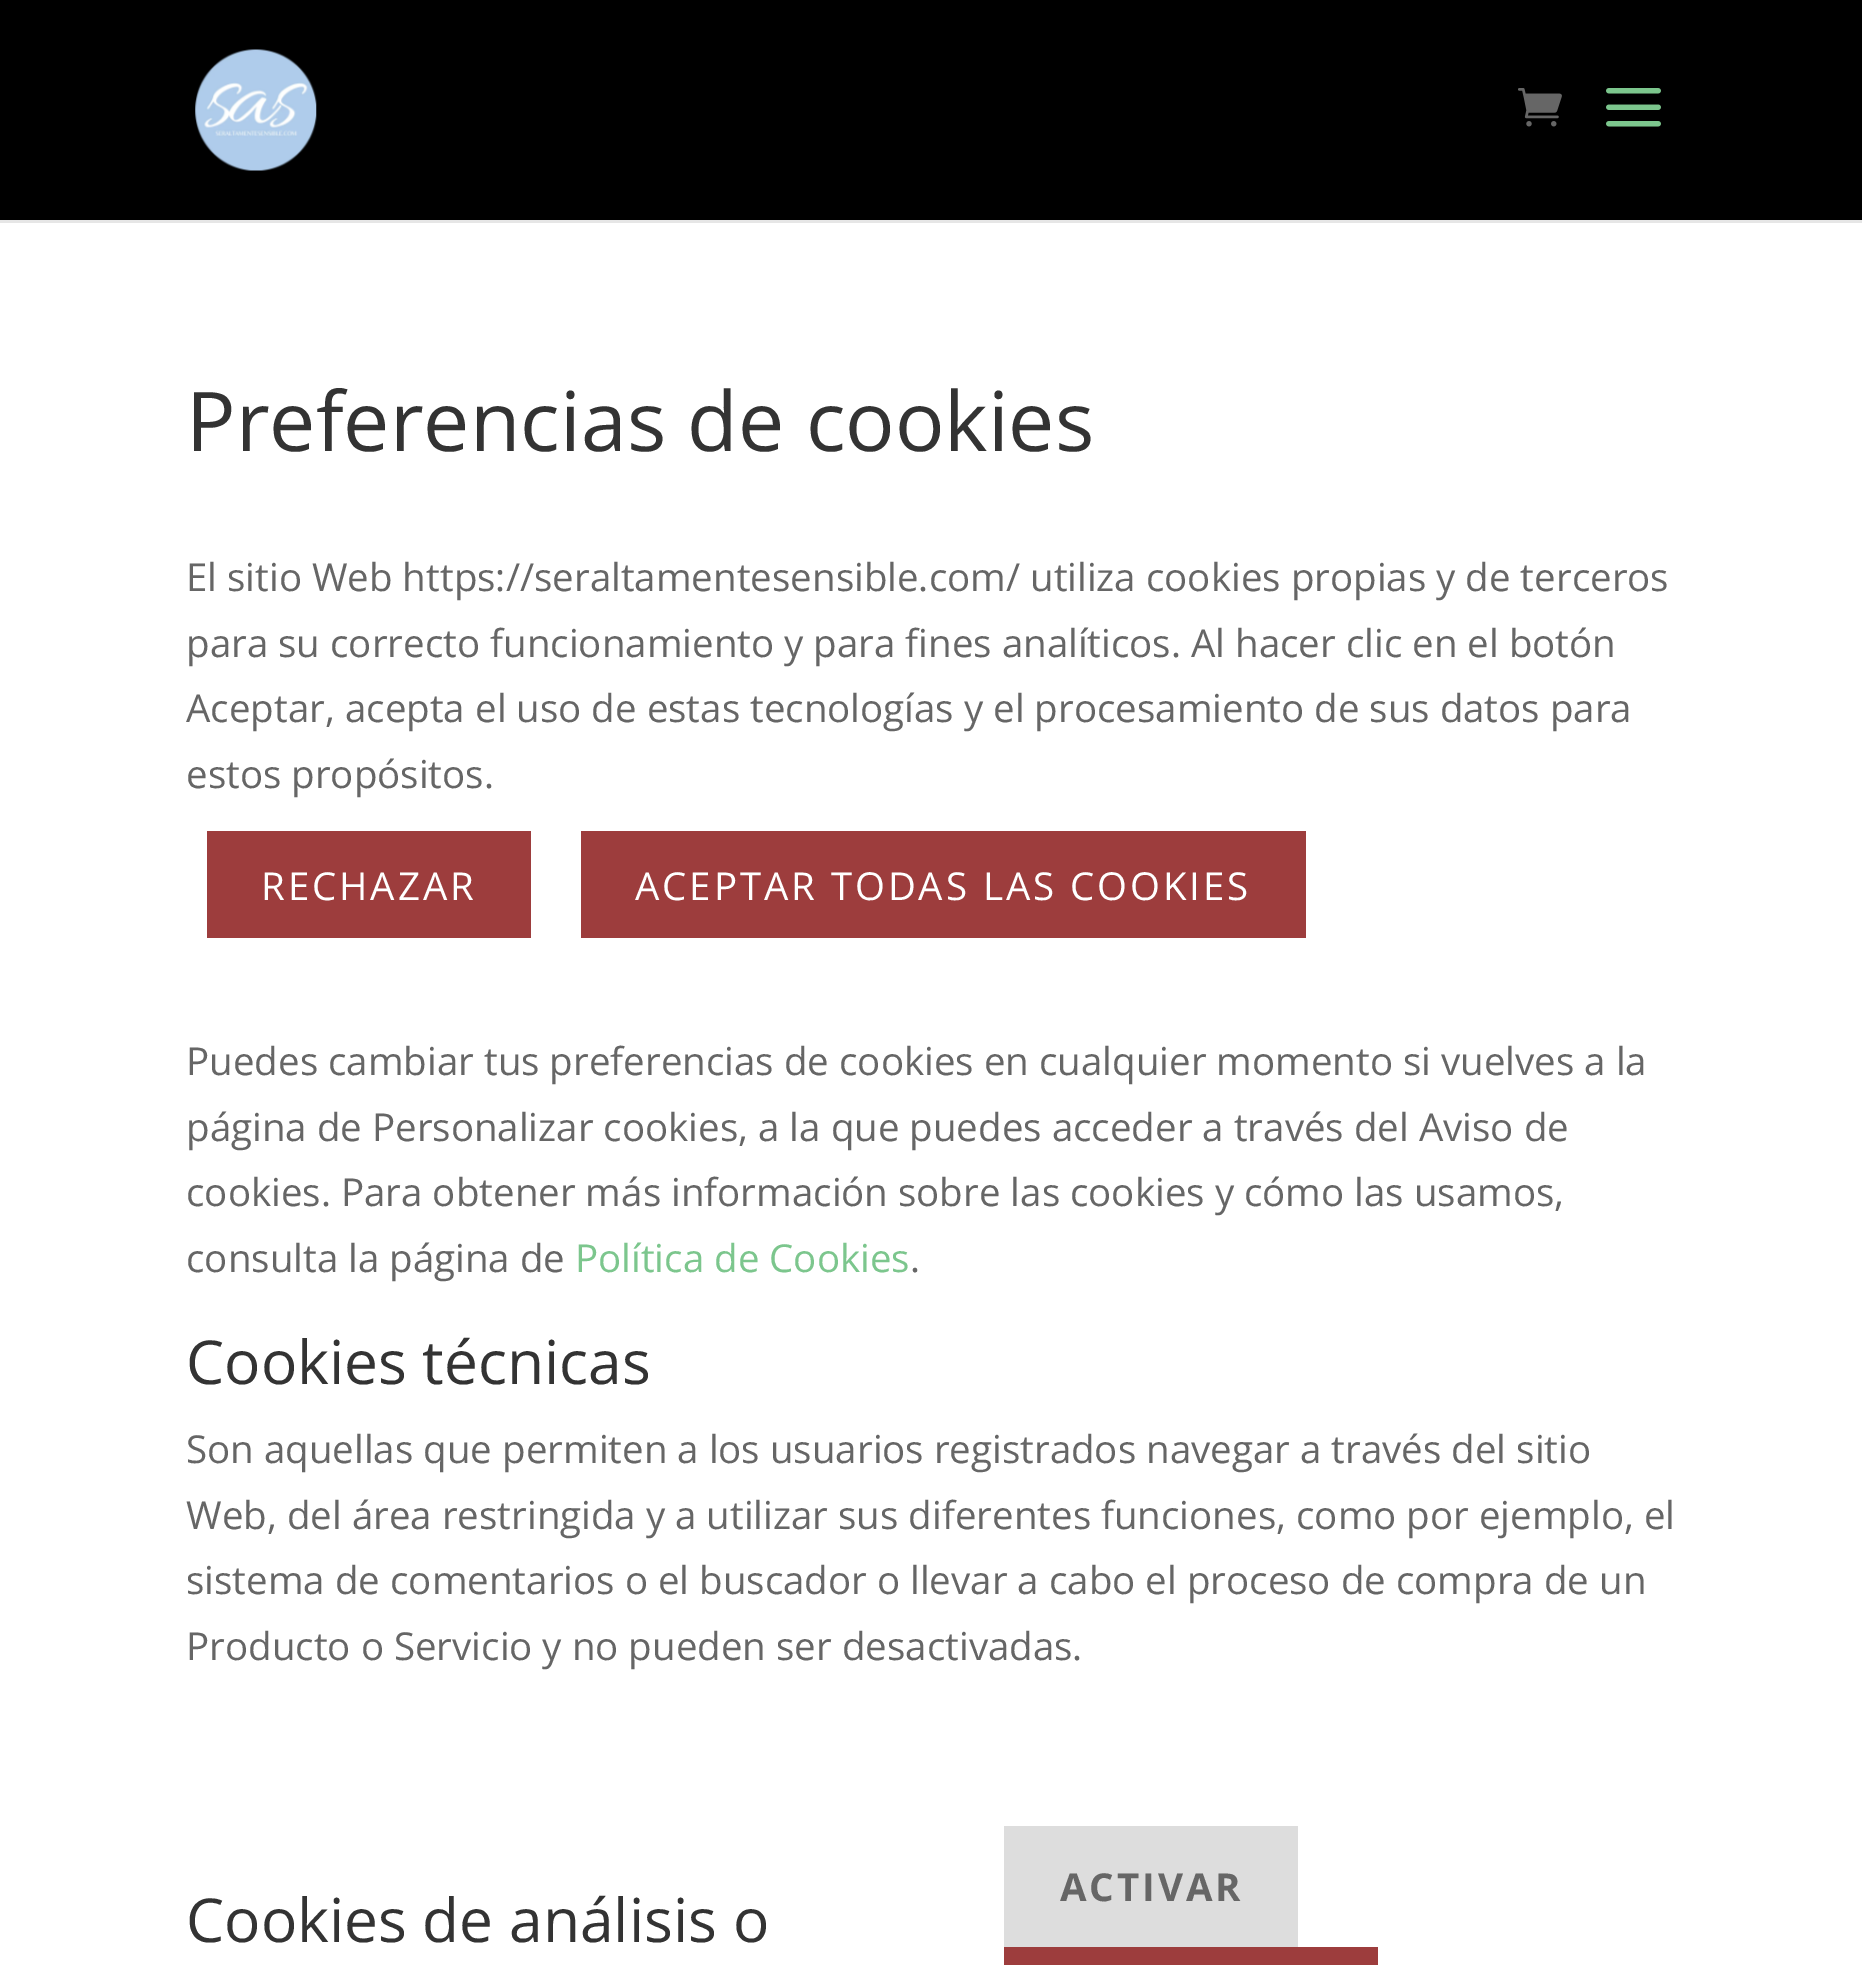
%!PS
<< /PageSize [1862 1965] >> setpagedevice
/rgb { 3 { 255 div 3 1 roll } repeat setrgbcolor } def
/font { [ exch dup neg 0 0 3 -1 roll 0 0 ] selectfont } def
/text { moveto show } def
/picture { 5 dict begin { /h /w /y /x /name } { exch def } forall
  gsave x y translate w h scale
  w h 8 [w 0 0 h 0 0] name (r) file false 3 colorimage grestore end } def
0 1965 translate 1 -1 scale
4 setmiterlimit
255 255 255 rgb
0 0 1862 1965 rectfill
230 230 230 rgb
0 220 moveto 0 3 rlineto 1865 0 rlineto 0 -220 rlineto -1 0 rlineto 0 217 rlineto closepath fill
0 0 0 rgb
0 0 1862 220 rectfill
(img_01.rgb) 195 49 122 122 picture
(img_02.rgb) 1518 88 44 39 picture
(img_03.rgb) 1606 88 55 39 picture
157 61 61 rgb
207 831 324 107 rectfill
581 831 725 107 rectfill
221 221 221 rgb
1004 1826 294 121 rectfill
157 61 61 rgb
1004 1947 374 18 rectfill
/OpenSans-Regular 82.5 font
51 51 51 rgb
(Preferencias de cookies) 186 451 text
/OpenSans-Regular 38.5 font
102 102 102 rgb
(El sitio Web https://seraltamentesensible.com/ utiliza cookies propias y de terceros) 186 591 text
(para su correcto funcionamiento y para fines analíticos. Al hacer clic en el botón) 186 657 text
(Aceptar, acepta el uso de estas tecnologías y el procesamiento de sus datos para) 186 722 text
(estos propósitos.) 186 788 text
255 255 255 rgb
261 900 moveto 2.9 0 (RECHAZAR) ashow
635 900 moveto 2.9 0 (ACEPTAR TODAS LAS COOKIES) ashow
102 102 102 rgb
(Puedes cambiar tus preferencias de cookies en cualquier momento si vuelves a la) 186 1075 text
(página de Personalizar cookies, a la que puedes acceder a través del Aviso de) 186 1141 text
(cookies. Para obtener más información sobre las cookies y cómo las usamos,) 186 1206 text
(consulta la página de) 186 1272 text
124 198 141 rgb
(Política de Cookies) 575 1272 text
102 102 102 rgb
(.) 910 1272 text
/OpenSans-Regular 60.5 font
51 51 51 rgb
(Cookies técnicas) 186 1384 text
/OpenSans-Regular 38.5 font
102 102 102 rgb
(Son aquellas que permiten a los usuarios registrados navegar a través del sitio) 186 1463 text
(Web, del área restringida y a utilizar sus diferentes funciones, como por ejemplo, el) 186 1529 text
(sistema de comentarios o el buscador o llevar a cabo el proceso de compra de un) 186 1594 text
(Producto o Servicio y no pueden ser desactivadas.) 186 1660 text
/OpenSans-Bold 38.5 font
1060 1901 moveto 2.9 0 (ACTIVAR) ashow
/OpenSans-Regular 60.5 font
51 51 51 rgb
(Cookies de análisis o) 186 1942 text
showpage
